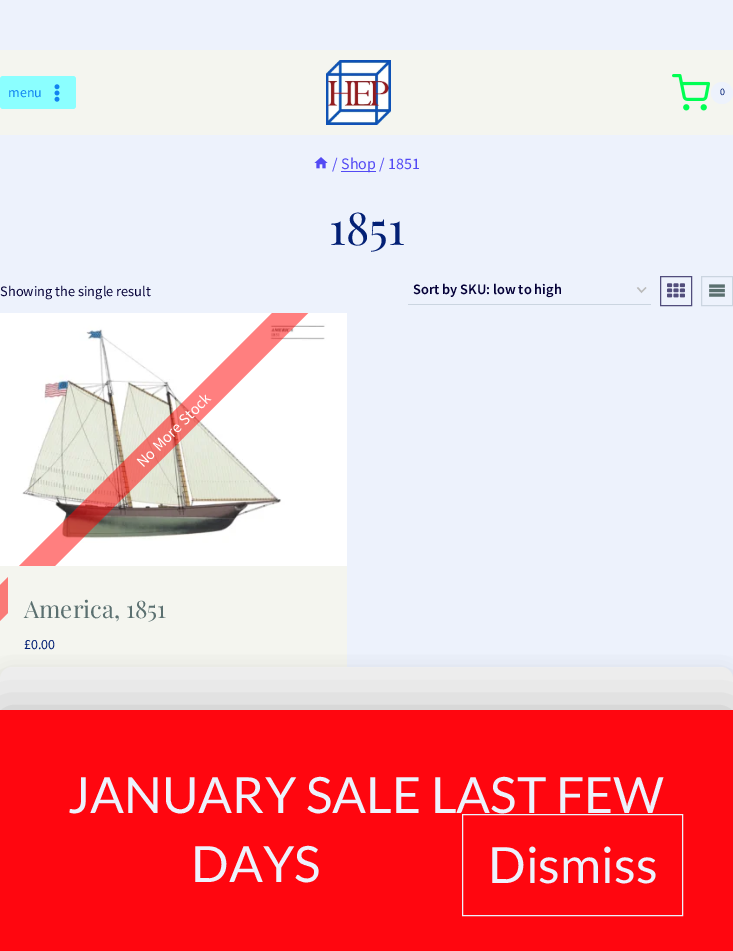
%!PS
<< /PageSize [733 951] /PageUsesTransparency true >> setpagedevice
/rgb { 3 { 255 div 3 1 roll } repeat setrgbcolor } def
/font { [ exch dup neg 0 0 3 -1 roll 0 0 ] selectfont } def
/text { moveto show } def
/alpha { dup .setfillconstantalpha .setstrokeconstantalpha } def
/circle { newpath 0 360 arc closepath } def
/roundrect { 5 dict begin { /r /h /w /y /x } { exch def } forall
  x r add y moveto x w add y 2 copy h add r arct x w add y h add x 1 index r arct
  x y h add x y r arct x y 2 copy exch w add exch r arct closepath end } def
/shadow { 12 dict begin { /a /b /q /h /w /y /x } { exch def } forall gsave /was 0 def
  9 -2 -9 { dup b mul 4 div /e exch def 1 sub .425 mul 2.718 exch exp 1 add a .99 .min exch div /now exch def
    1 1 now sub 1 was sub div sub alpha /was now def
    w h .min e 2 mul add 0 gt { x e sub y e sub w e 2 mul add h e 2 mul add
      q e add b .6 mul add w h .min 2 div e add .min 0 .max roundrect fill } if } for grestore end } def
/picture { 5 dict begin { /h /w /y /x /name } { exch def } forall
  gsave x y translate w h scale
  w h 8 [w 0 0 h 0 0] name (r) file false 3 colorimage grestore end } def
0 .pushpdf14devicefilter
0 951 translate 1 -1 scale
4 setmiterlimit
237 242 252 rgb
0 0 733 951 rectfill
244 245 239 rgb
0 50 733 85 rectfill
139 255 255 rgb
0 76 76 33 3 roundrect fill
(img_01.rgb) 54 84 6 18 picture
(img_02.rgb) 326 60 65 65 picture
(img_03.rgb) 672 74 38 37 picture
237 242 252 rgb
722 93 11 circle fill
(img_04.rgb) 314 157 14 12 picture
83 74 244 rgb
341 171 35 1 rectfill
187 187 187 rgb
1.4 setlinewidth
637.5 287.5 moveto 4 4.5 rlineto 4.5 -4.5 rlineto stroke
203 213 224 rgb
408 304 243 1 rectfill
81 77 124 rgb
1 setlinewidth
660.5 276.5 31 29 rectstroke
(img_05.rgb) 667 283 18 15 picture
203 213 224 rgb
701.5 276.5 31 29 rectstroke
(img_06.rgb) 709 284 16 13 picture
244 245 239 rgb
0 566 347 113 rectfill
(img_07.rgb) 0 313 347 253 picture
gsave
0 313 347 428 rectclip
0.5 alpha
255 0 0 rgb
-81 666 moveto 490 -490 rlineto 18 18 rlineto -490 490 rlineto closepath fill
grestore
8 566 331 175 4 roundrect fill
0 0 0 rgb
0 677 733 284 12 10 0.19 shadow
241 241 241 rgb
0 667 733 284 12 roundrect fill
0 0 0 rgb
0 711 733 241 0 25 0.2 shadow
255 6 15 rgb
0 710 733 241 rectfill
237 242 252 rgb
462.5 814.5 220 101 rectstroke
/SourceSansPro-Regular 14 font
17 131 240 rgb
(menu) 8 97 text
/SourceSansPro-Regular 10 font
3 32 117 rgb
(0) 720 95 text
/SourceSansPro-Regular 16 font
83 74 244 rgb
(/) 332 169 text
(Shop / 1851) 341 169 text
/PlayfairDisplay-Regular 45 font
3 32 117 rgb
(1851) 329 245 text
/SourceSansPro-Regular 14.4 font
4 0 55 rgb
(Showing the single result) 0 296 text
/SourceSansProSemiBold-SemiBold 14.4 font
(Sort by SKU: low to high) 413 294 text
/SourceSansPro-Regular 16 font
255 255 255 rgb
gsave 143 468 translate -45 rotate 0 0 moveto (No More Stock) show grestore
/PlayfairDisplay-Regular 24 font
91 112 112 rgb
(America, 1851) 24 618 text
/SourceSansPro-Regular 14 font
3 32 117 rgb
(£0.00) 24 649 text
/Lato-Regular 50 font
237 242 252 rgb
(JANUARY SALE LAST FEW) 68 813 text
(DAYS) 191 882 text
(Dismiss) 488 883 text
.poppdf14devicefilter showpage
